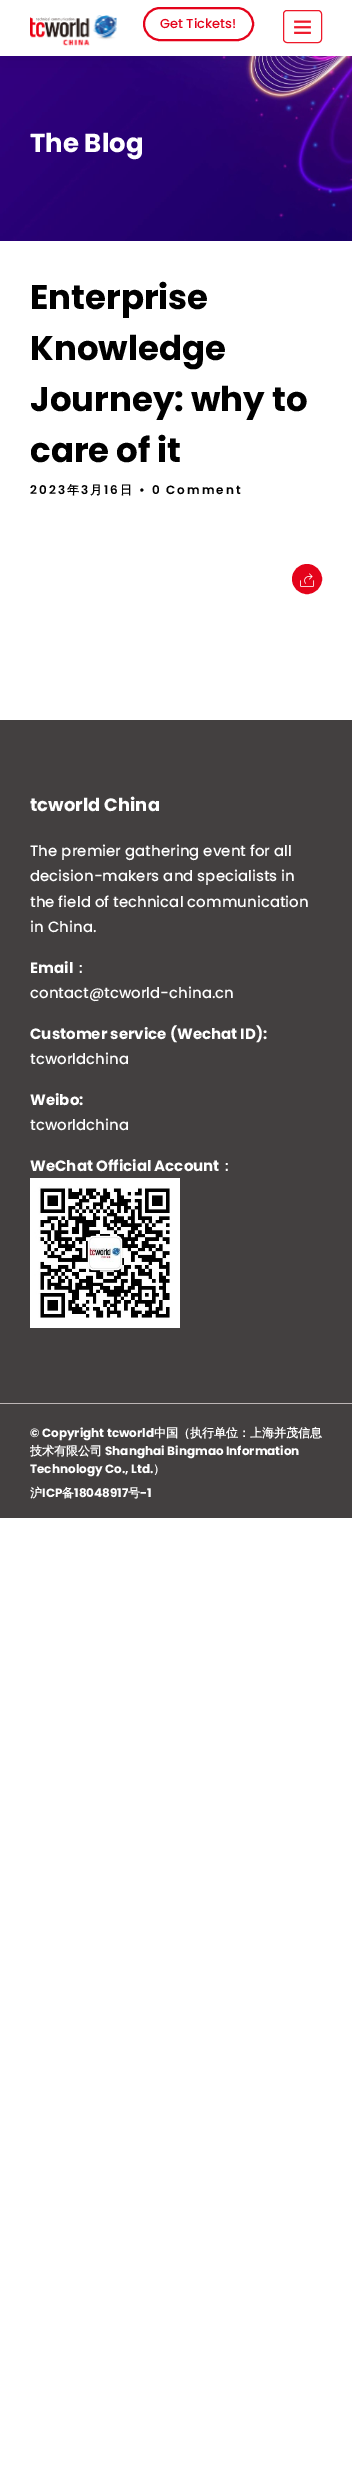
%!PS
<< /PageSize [352 2483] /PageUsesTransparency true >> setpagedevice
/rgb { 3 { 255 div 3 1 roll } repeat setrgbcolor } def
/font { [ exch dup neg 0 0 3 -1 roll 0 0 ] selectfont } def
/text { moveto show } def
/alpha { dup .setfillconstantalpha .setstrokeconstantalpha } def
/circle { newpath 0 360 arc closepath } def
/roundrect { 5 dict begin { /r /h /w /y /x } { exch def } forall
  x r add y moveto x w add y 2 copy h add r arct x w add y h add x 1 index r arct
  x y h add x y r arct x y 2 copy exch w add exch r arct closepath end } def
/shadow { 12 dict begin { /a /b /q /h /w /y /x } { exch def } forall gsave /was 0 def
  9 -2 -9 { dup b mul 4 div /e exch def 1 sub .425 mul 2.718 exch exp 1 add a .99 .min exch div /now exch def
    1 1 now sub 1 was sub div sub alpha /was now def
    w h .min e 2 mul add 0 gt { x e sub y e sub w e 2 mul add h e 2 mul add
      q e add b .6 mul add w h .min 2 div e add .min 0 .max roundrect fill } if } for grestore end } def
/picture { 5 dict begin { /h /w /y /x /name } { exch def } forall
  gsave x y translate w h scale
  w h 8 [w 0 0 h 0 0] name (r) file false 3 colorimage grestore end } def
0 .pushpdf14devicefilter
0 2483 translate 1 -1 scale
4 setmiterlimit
255 255 255 rgb
0 0 352 2483 rectfill
(img_03.rgb) 0 56 352 185 picture
0 0 0 rgb
0 1 352 56 0 15 0.1 shadow
255 255 255 rgb
0 0 352 56 rectfill
(img_01.rgb) 30 15 87 31 picture
228 3 27 rgb
2 setlinewidth
144 8 109 32 16 roundrect stroke
238 25 42 rgb
1 setlinewidth
283.5 10.5 38 32 3.5 roundrect stroke
(img_02.rgb) 294 20 17 14 picture
228 3 27 rgb
307 579 14 circle gsave fill grestore
2 setlinewidth
stroke
(img_04.rgb) 300 573 15 14 picture
67 64 64 rgb
0 720 352 683 rectfill
(img_05.rgb) 30 1178 150 150 picture
0 1404 352 114 rectfill
189 182 182 rgb
0 1403 352 1 rectfill
/Poppins-Medium 13 font
228 3 27 rgb
(Get Tickets!) 160 28 text
/Poppins-Bold 26 font
255 255 255 rgb
(The Blog) 30 152 text
/Poppins-Bold 34 font
0 0 0 rgb
(Enterprise) 30 309 text
(Knowledge) 30 360 text
(Journey: why to) 30 411 text
(care of it) 30 462 text
/Poppins-SemiBold 12 font
30 494 moveto 2 0 (2023) ashow
/WenQuanYiZenHei-Bold 12 font
67 494 moveto 2 0 (年) ashow
/Poppins-SemiBold 12 font
81 494 moveto 2 0 (3) ashow
/WenQuanYiZenHei-Bold 12 font
90 494 moveto 2 0 (月) ashow
/Poppins-SemiBold 12 font
104 494 moveto 2 0 (16) ashow
/WenQuanYiZenHei-Bold 12 font
120 494 moveto 2 0 (日) ashow
/Poppins-SemiBold 12 font
139 494 moveto 2 0 (• 0 Comment) ashow
/Poppins-Bold 18 font
255 255 255 rgb
(tcworld China) 30 811 text
/Poppins-Medium 15 font
(The premier gathering event for all) 30 856 text
(decision-makers and specialists in) 30 881 text
(the field of technical communication) 30 907 text
(in China.) 30 932 text
/Poppins-Bold 15 font
(Email) 30 973 text
/WenQuanYiZenHei-Bold 15 font
(：) 73 973 text
/Poppins-Medium 15 font
(contact@tcworld-china.cn) 30 998 text
/Poppins-Bold 15 font
(Customer service \(Wechat ID\):) 30 1039 text
/Poppins-Medium 15 font
(tcworldchina) 30 1064 text
/Poppins-Bold 15 font
(Weibo:) 30 1105 text
/Poppins-Medium 15 font
(tcworldchina) 30 1130 text
/Poppins-Bold 15 font
(WeChat Official Account) 30 1171 text
/WenQuanYiZenHei-Bold 15 font
(：) 219 1171 text
/Poppins-Bold 12 font
(© Copyright tcworld) 30 1437 text
/WenQuanYiZenHei-Bold 12 font
(中国（执行单位：上海并茂信息) 154 1437 text
(技术有限公司) 30 1455 text
/Poppins-Bold 12 font
(Shanghai Bingmao Information) 105 1455 text
(Technology Co., Ltd.) 30 1473 text
/WenQuanYiZenHei-Bold 12 font
(）) 153 1473 text
(沪) 30 1497 text
/Poppins-Bold 12 font
(ICP) 42 1497 text
/WenQuanYiZenHei-Bold 12 font
(备) 62 1497 text
/Poppins-Bold 12 font
(18048917) 74 1497 text
/WenQuanYiZenHei-Bold 12 font
(号) 128 1497 text
/Poppins-Bold 12 font
(-1) 140 1497 text
.poppdf14devicefilter showpage
